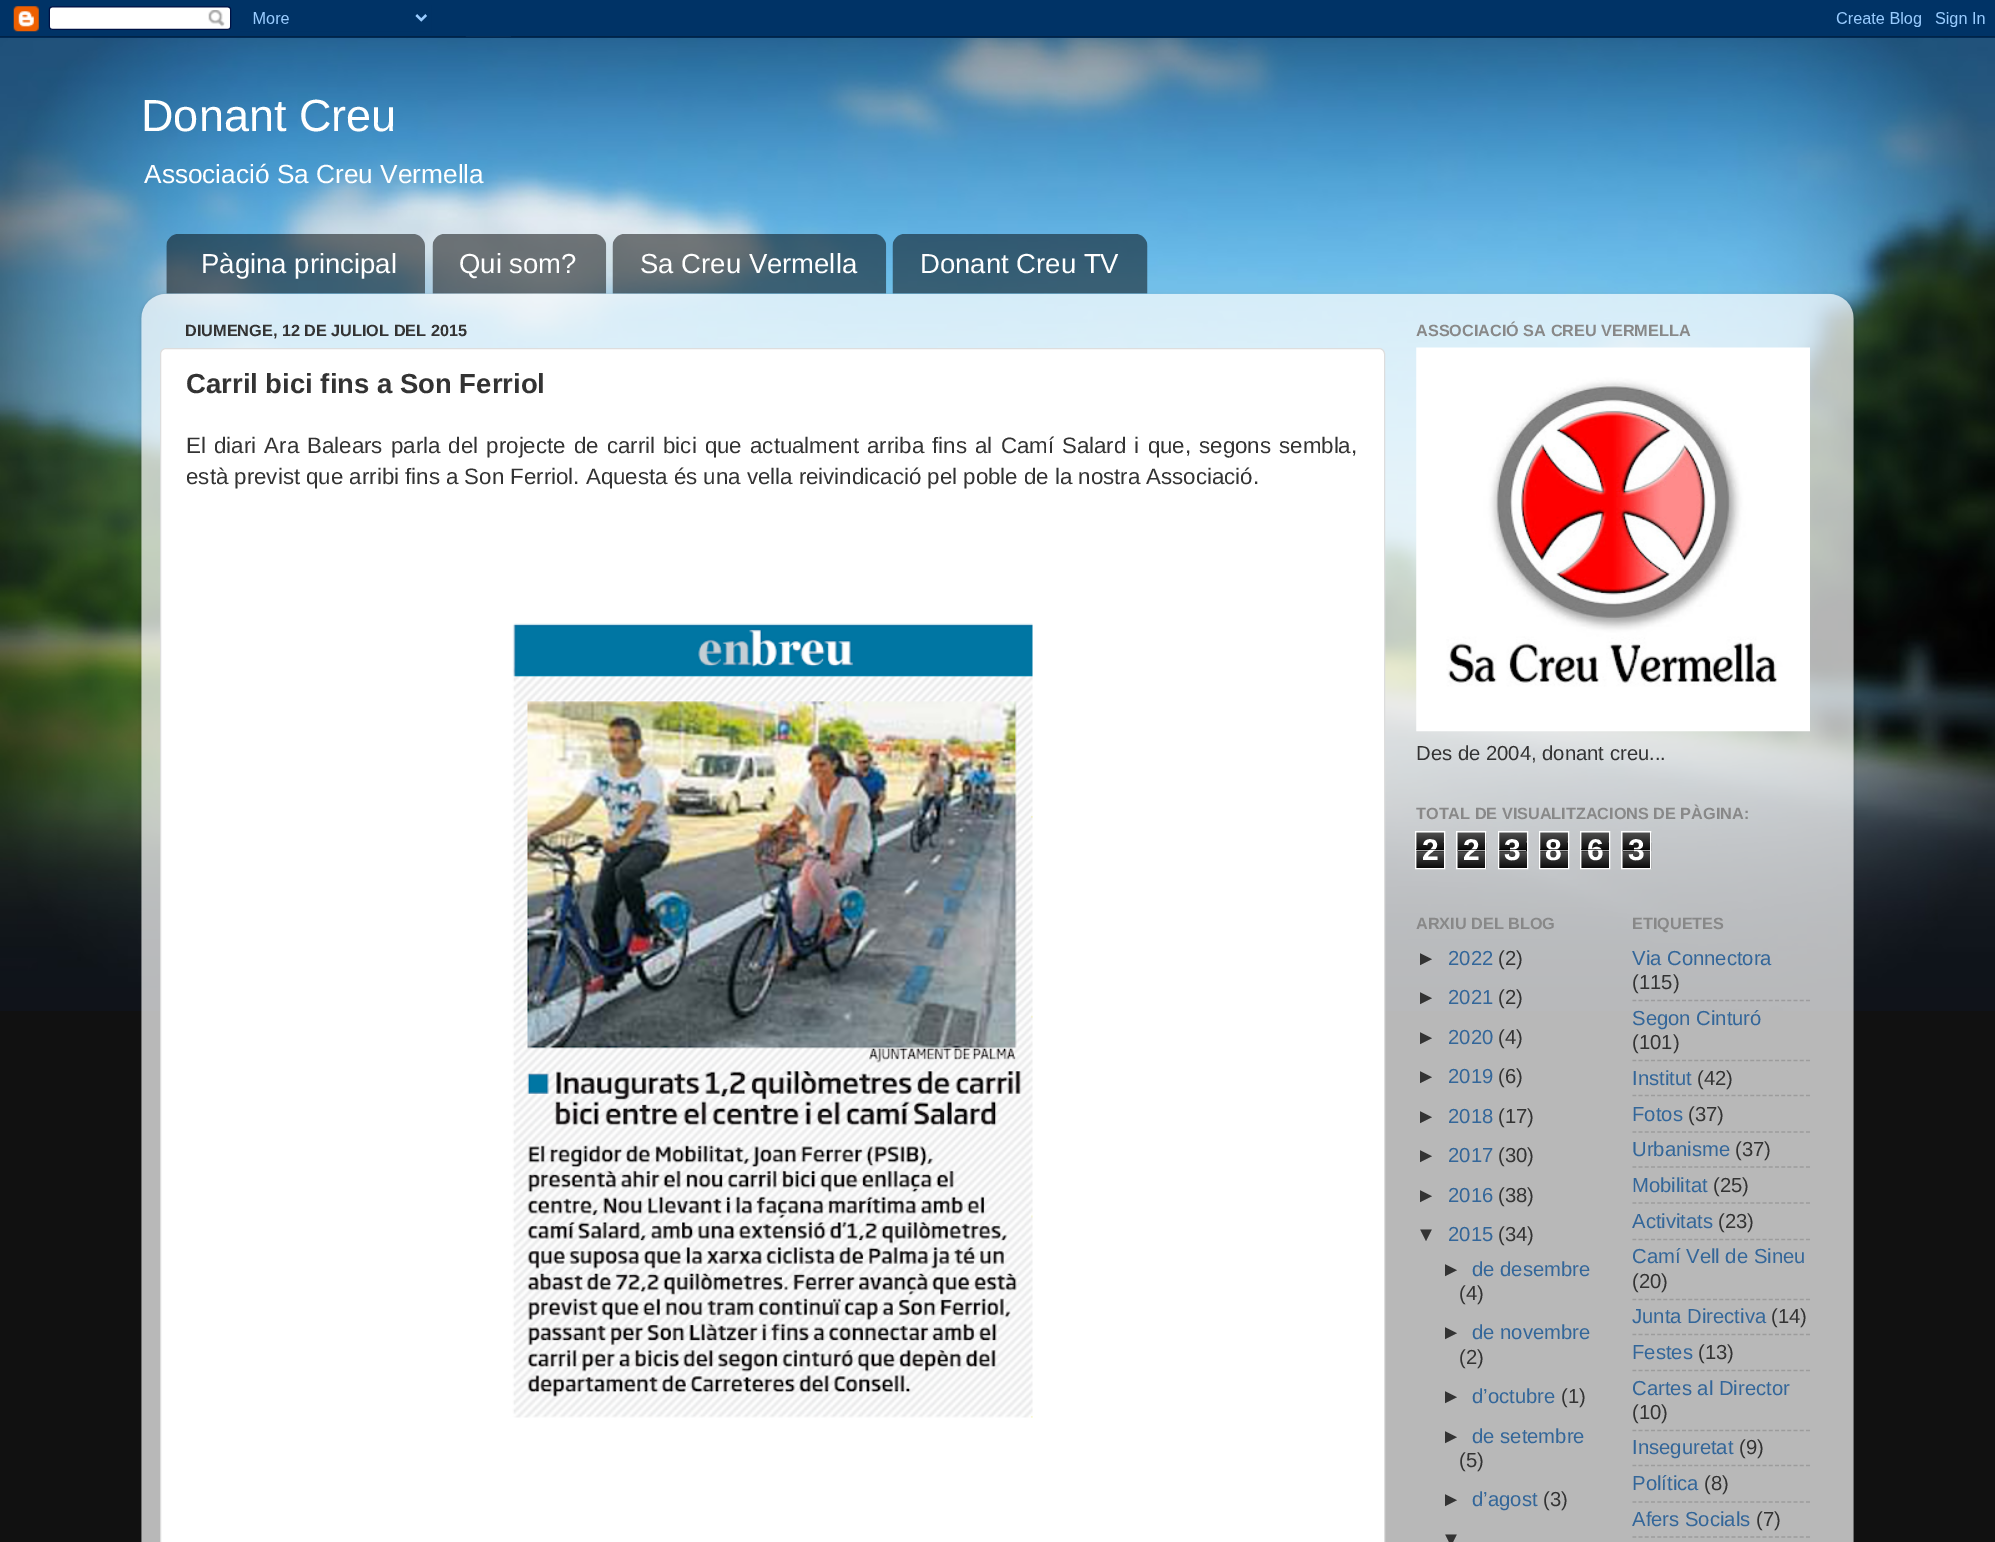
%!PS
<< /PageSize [1995 1542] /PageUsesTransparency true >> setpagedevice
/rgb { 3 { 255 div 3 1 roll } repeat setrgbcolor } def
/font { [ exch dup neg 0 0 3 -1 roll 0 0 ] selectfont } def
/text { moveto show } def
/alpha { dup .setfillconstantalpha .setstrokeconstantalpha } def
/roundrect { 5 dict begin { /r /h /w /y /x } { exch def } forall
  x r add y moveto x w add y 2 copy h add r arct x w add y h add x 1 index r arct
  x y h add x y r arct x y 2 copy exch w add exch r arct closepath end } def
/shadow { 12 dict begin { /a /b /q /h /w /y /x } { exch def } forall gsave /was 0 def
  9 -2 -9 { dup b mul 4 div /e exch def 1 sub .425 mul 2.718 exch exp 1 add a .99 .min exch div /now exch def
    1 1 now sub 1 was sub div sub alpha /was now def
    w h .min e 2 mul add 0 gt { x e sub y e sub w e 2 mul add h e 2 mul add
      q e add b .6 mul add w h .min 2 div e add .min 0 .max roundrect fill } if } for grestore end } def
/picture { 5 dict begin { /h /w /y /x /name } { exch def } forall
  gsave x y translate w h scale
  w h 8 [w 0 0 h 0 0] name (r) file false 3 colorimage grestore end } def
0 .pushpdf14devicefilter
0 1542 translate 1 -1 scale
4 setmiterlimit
17 17 17 rgb
0 0 1995 1542 rectfill
(img_01.rgb) 0 36 1995 975 picture
(img_02.rgb) 0 0 1995 38 picture
(img_03.rgb) 166 234 259 60 picture
(img_04.rgb) 432 234 175 60 picture
(img_05.rgb) 612 234 275 60 picture
(img_06.rgb) 892 234 256 60 picture
gsave
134 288 moveto 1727 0 rlineto 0 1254 rlineto -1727 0 rlineto closepath 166 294 moveto 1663 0 rlineto 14 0 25 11 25 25 rcurveto 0 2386 rlineto -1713 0 rlineto 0 -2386 rlineto 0 -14 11 -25 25 -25 rcurveto closepath eoclip newpath
0 0 0 rgb
141 295 1713 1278 25 2 0.15 shadow
grestore
(img_07.rgb) 141 293 1713 1249 picture
255 255 255 rgb
160.5 348.5 1224 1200 5.5 roundrect gsave fill grestore
221 221 221 rgb
stroke
(img_08.rgb) 512 623 521 795 picture
(img_09.rgb) 1416 347 394 385 picture
(img_10.rgb) 1416 832 28 36 picture
255 255 255 rgb
1415.5 831.5 29 37 rectstroke
(img_11.rgb) 1457 832 30 37 picture
1456.5 831.5 29 37 rectstroke
(img_12.rgb) 1499 832 28 36 picture
1498.5 831.5 29 37 rectstroke
(img_13.rgb) 1540 832 28 36 picture
1539.5 831.5 29 37 rectstroke
(img_14.rgb) 1581 832 28 36 picture
1580.5 831.5 29 37 rectstroke
(img_15.rgb) 1622 832 30 37 picture
1621.5 831.5 29 37 rectstroke
156 156 158 rgb
1.2 setlinewidth
[3.75 2.45] 0 setdash
1632.5 1000.5 moveto 177.5 0 rlineto stroke
156 156 156 rgb
1632.5 1060.5 moveto 177.5 0 rlineto stroke
1632.5 1095.5 moveto 177.5 0 rlineto stroke
1632.5 1132 moveto 177.5 0 rlineto stroke
1632.5 1167 moveto 177.5 0 rlineto stroke
1632.5 1203 moveto 177.5 0 rlineto stroke
1632.5 1239.5 moveto 177.5 0 rlineto stroke
1632.5 1299.5 moveto 177.5 0 rlineto stroke
1632.5 1334.5 moveto 177.5 0 rlineto stroke
1632.5 1370.5 moveto 177.5 0 rlineto stroke
1632.5 1430.5 moveto 177.5 0 rlineto stroke
1632.5 1465.5 moveto 177.5 0 rlineto stroke
1632.5 1502 moveto 177.5 0 rlineto stroke
1632.5 1537 moveto 177.5 0 rlineto stroke
/LiberationSans-Regular 45 font
255 255 255 rgb
(Donant Creu) 141 131 text
/LiberationSans-Regular 26.25 font
(Associació Sa Creu Vermella) 144 183 text
/LiberationSans-Regular 27.5 font
(Pàgina principal) 201 273 text
(Qui som?) 459 273 text
(Sa Creu Vermella) 640 273 text
(Donant Creu TV) 920 273 text
/LiberationSans-Bold 16.25 font
51 51 51 rgb
(DIUMENGE, 12 DE JULIOL DEL 2015) 185 336 text
/LiberationSans-Bold 27.5 font
(Carril bici fins a Son Ferriol) 186 393 text
/LiberationSans-Regular 22.27 font
186 453 moveto 2 0 32 (El diari Ara Balears parla del projecte de carril bici que actualment arriba fins al Camí Salard i que, segons sembla,) widthshow
(està previst que arribi fins a Son Ferriol. Aquesta és una vella reivindicació pel poble de la nostra Associació.) 186 484 text
/LiberationSans-Bold 16.25 font
136 136 136 rgb
(ASSOCIACIÓ SA CREU VERMELLA) 1416 336 text
/LiberationSans-Regular 20.25 font
51 51 51 rgb
(Des de 2004, donant creu...) 1416 760 text
/LiberationSans-Bold 16.25 font
136 136 136 rgb
(TOTAL DE VISUALITZACIONS DE PÀGINA:) 1416 819 text
/LiberationSans-Bold 30 font
255 255 255 rgb
(2) 1422 860 text
0.65 alpha
0 0 0 rgb
1416 849 28 1 rectfill
255 255 255 rgb
1416 850 28 1 rectfill
1 alpha
(2) 1463 860 text
0.65 alpha
0 0 0 rgb
1458 849 27 1 rectfill
255 255 255 rgb
1458 850 27 1 rectfill
1 alpha
(3) 1504 860 text
0.65 alpha
0 0 0 rgb
1499 849 27 1 rectfill
255 255 255 rgb
1499 850 27 1 rectfill
1 alpha
(8) 1545 860 text
0.65 alpha
0 0 0 rgb
1540 849 28 1 rectfill
255 255 255 rgb
1540 850 28 1 rectfill
1 alpha
(6) 1587 860 text
0.65 alpha
0 0 0 rgb
1581 849 28 1 rectfill
255 255 255 rgb
1581 850 28 1 rectfill
1 alpha
(3) 1628 860 text
0.65 alpha
0 0 0 rgb
1623 849 27 1 rectfill
255 255 255 rgb
1623 850 27 1 rectfill
/LiberationSans-Bold 16.25 font
1 alpha
136 136 136 rgb
(ARXIU DEL BLOG) 1416 929 text
/LiberationSans-Regular 20.25 font
51 51 51 rgb
(►) 1416 965 text
51 102 153 rgb
(2022) 1448 965 text
51 51 51 rgb
(\(2\)) 1498 965 text
(►) 1416 1004 text
51 102 153 rgb
(2021) 1448 1004 text
51 51 51 rgb
(\(2\)) 1498 1004 text
(►) 1416 1044 text
51 102 153 rgb
(2020) 1448 1044 text
51 51 51 rgb
(\(4\)) 1498 1044 text
(►) 1416 1083 text
51 102 153 rgb
(2019) 1448 1083 text
51 51 51 rgb
(\(6\)) 1498 1083 text
(►) 1416 1123 text
51 102 153 rgb
(2018) 1448 1123 text
51 51 51 rgb
(\(17\)) 1498 1123 text
(►) 1416 1162 text
51 102 153 rgb
(2017) 1448 1162 text
51 51 51 rgb
(\(30\)) 1498 1162 text
(►) 1416 1202 text
51 102 153 rgb
(2016) 1448 1202 text
51 51 51 rgb
(\(38\)) 1498 1202 text
(▼) 1416 1241 text
51 102 153 rgb
(2015) 1448 1241 text
51 51 51 rgb
(\(34\)) 1498 1241 text
(►) 1441 1276 text
51 102 153 rgb
(de desembre) 1472 1276 text
51 51 51 rgb
(\(4\)) 1459 1300 text
(►) 1441 1339 text
51 102 153 rgb
(de novembre) 1472 1339 text
51 51 51 rgb
(\(2\)) 1459 1364 text
(►) 1441 1403 text
51 102 153 rgb
(d’octubre) 1472 1403 text
51 51 51 rgb
(\(1\)) 1561 1403 text
(►) 1441 1443 text
51 102 153 rgb
(de setembre) 1472 1443 text
51 51 51 rgb
(\(5\)) 1459 1467 text
(►) 1441 1506 text
51 102 153 rgb
(d’agost) 1472 1506 text
51 51 51 rgb
(\(3\)) 1543 1506 text
(▼) 1441 1546 text
/LiberationSans-Bold 16.25 font
136 136 136 rgb
(ETIQUETES) 1632 929 text
/LiberationSans-Regular 20.25 font
51 102 153 rgb
(Via Connectora) 1632 965 text
51 51 51 rgb
(\(115\)) 1632 989 text
51 102 153 rgb
(Segon Cinturó) 1632 1025 text
51 51 51 rgb
(\(101\)) 1632 1049 text
51 102 153 rgb
(Institut) 1632 1085 text
51 51 51 rgb
(\(42\)) 1697 1085 text
51 102 153 rgb
(Fotos) 1632 1121 text
51 51 51 rgb
(\(37\)) 1688 1121 text
51 102 153 rgb
(Urbanisme) 1632 1156 text
51 51 51 rgb
(\(37\)) 1735 1156 text
51 102 153 rgb
(Mobilitat) 1632 1192 text
51 51 51 rgb
(\(25\)) 1713 1192 text
51 102 153 rgb
(Activitats) 1632 1228 text
51 51 51 rgb
(\(23\)) 1718 1228 text
51 102 153 rgb
(Camí Vell de Sineu) 1632 1263 text
51 51 51 rgb
(\(20\)) 1632 1288 text
51 102 153 rgb
(Junta Directiva) 1632 1323 text
51 51 51 rgb
(\(14\)) 1771 1323 text
51 102 153 rgb
(Festes) 1632 1359 text
51 51 51 rgb
(\(13\)) 1698 1359 text
51 102 153 rgb
(Cartes al Director) 1632 1395 text
51 51 51 rgb
(\(10\)) 1632 1419 text
51 102 153 rgb
(Inseguretat) 1632 1454 text
51 51 51 rgb
(\(9\)) 1739 1454 text
51 102 153 rgb
(Política) 1632 1490 text
51 51 51 rgb
(\(8\)) 1704 1490 text
51 102 153 rgb
(Afers Socials) 1632 1526 text
51 51 51 rgb
(\(7\)) 1756 1526 text
.poppdf14devicefilter showpage
